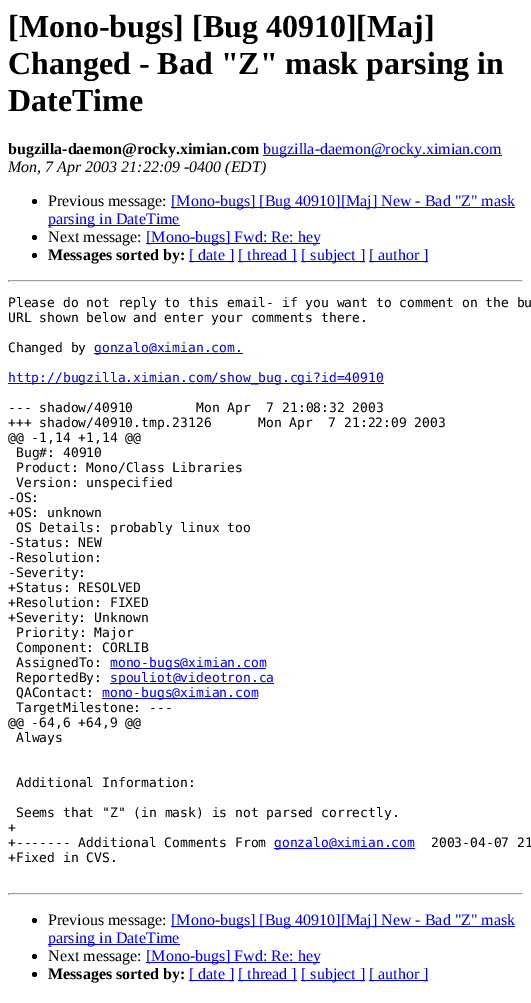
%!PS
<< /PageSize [531 1003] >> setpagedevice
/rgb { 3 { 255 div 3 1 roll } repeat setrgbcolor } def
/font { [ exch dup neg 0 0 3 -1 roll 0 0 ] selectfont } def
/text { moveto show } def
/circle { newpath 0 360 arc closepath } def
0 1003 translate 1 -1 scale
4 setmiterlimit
255 255 255 rgb
0 0 531 1003 rectfill
0 0 238 rgb
263 155 239 1 rectfill
0 0 0 rgb
34.5 201.5 2.5 circle fill
0 0 238 rgb
171 207 344 1 rectfill
48 225 132 1 rectfill
0 0 0 rgb
34.5 237.5 2.5 circle fill
0 0 238 rgb
146 243 174 1 rectfill
0 0 0 rgb
34.5 255.5 2.5 circle fill
0 0 238 rgb
189 261 45 1 rectfill
238 261 59 1 rectfill
301 261 64 1 rectfill
369 261 59 1 rectfill
159 159 159 rgb
8 280 515 1 rectfill
238 238 238 rgb
522 280 1 2 rectfill
8 281 515 1 rectfill
159 159 159 rgb
8 280 1 2 rectfill
0 0 238 rgb
94 353 149 1 rectfill
8 383 376 1 rectfill
110 668 156 1 rectfill
110 683 164 1 rectfill
102 698 156 1 rectfill
274 848 141 1 rectfill
159 159 159 rgb
8 893 515 1 rectfill
238 238 238 rgb
522 893 1 2 rectfill
8 894 515 1 rectfill
159 159 159 rgb
8 893 1 2 rectfill
0 0 0 rgb
34.5 920.5 2.5 circle fill
0 0 238 rgb
171 926 344 1 rectfill
48 944 132 1 rectfill
0 0 0 rgb
34.5 956.5 2.5 circle fill
0 0 238 rgb
146 962 174 1 rectfill
0 0 0 rgb
34.5 974.5 2.5 circle fill
0 0 238 rgb
189 980 45 1 rectfill
238 980 59 1 rectfill
301 980 64 1 rectfill
369 980 59 1 rectfill
/LiberationSerif-Bold 32 font
0 0 0 rgb
([Mono-bugs] [Bug 40910][Maj]) 8 37 text
(Changed - Bad "Z" mask parsing in) 8 74 text
(DateTime) 8 111 text
/LiberationSerif-Bold 16 font
(bugzilla-daemon@rocky.ximian.com) 8 154 text
/LiberationSerif-Regular 16 font
0 0 238 rgb
(bugzilla-daemon@rocky.ximian.com) 263 154 text
/LiberationSerif-Italic 16 font
0 0 0 rgb
(Mon, 7 Apr 2003 21:22:09 -0400 \(EDT\)) 8 172 text
/LiberationSerif-Regular 16 font
(Previous message:) 48 206 text
0 0 238 rgb
([Mono-bugs] [Bug 40910][Maj] New - Bad "Z" mask) 171 206 text
(parsing in DateTime) 48 224 text
0 0 0 rgb
(Next message:) 48 242 text
0 0 238 rgb
([Mono-bugs] Fwd: Re: hey) 146 242 text
/LiberationSerif-Bold 16 font
0 0 0 rgb
(Messages sorted by:) 48 260 text
/LiberationSerif-Regular 16 font
0 0 238 rgb
([ date ]) 189 260 text
([ thread ]) 238 260 text
([ subject ]) 301 260 text
([ author ]) 369 260 text
/DejaVuSansMono-Regular 13 font
0 0 0 rgb
(Please do not reply to this email- if you want to comment on the bu) 8 307 text
(URL shown below and enter your comments there.) 8 322 text
(Changed by) 8 352 text
0 0 238 rgb
(gonzalo@ximian.com.) 94 352 text
(http://bugzilla.ximian.com/show_bug.cgi?id=40910) 8 382 text
0 0 0 rgb
(--- shadow/40910) 8 412 text
(Mon Apr  7 21:08:32 2003) 196 412 text
(+++ shadow/40910.tmp.23126) 8 427 text
(Mon Apr  7 21:22:09 2003) 258 427 text
(@@ -1,14 +1,14 @@) 8 442 text
(Bug#: 40910) 16 457 text
(Product: Mono/Class Libraries) 16 472 text
(Version: unspecified) 16 487 text
(-OS:) 8 502 text
(+OS: unknown) 8 517 text
(OS Details: probably linux too) 16 532 text
(-Status: NEW) 8 547 text
(-Resolution:) 8 562 text
(-Severity:) 8 577 text
(+Status: RESOLVED) 8 592 text
(+Resolution: FIXED) 8 607 text
(+Severity: Unknown) 8 622 text
(Priority: Major) 16 637 text
(Component: CORLIB) 16 652 text
(AssignedTo:) 16 667 text
0 0 238 rgb
(mono-bugs@ximian.com) 110 667 text
0 0 0 rgb
(ReportedBy:) 16 682 text
0 0 238 rgb
(spouliot@videotron.ca) 110 682 text
0 0 0 rgb
(QAContact:) 16 697 text
0 0 238 rgb
(mono-bugs@ximian.com) 102 697 text
0 0 0 rgb
(TargetMilestone: ---) 16 712 text
(@@ -64,6 +64,9 @@) 8 727 text
(Always) 16 742 text
(Additional Information:) 16 787 text
(Seems that "Z" \(in mask\) is not parsed correctly.) 16 817 text
(+) 8 832 text
(+------- Additional Comments From) 8 847 text
0 0 238 rgb
(gonzalo@ximian.com) 274 847 text
0 0 0 rgb
(2003-04-07 21) 431 847 text
(+Fixed in CVS.) 8 862 text
/LiberationSerif-Regular 16 font
(Previous message:) 48 925 text
0 0 238 rgb
([Mono-bugs] [Bug 40910][Maj] New - Bad "Z" mask) 171 925 text
(parsing in DateTime) 48 943 text
0 0 0 rgb
(Next message:) 48 961 text
0 0 238 rgb
([Mono-bugs] Fwd: Re: hey) 146 961 text
/LiberationSerif-Bold 16 font
0 0 0 rgb
(Messages sorted by:) 48 979 text
/LiberationSerif-Regular 16 font
0 0 238 rgb
([ date ]) 189 979 text
([ thread ]) 238 979 text
([ subject ]) 301 979 text
([ author ]) 369 979 text
showpage
